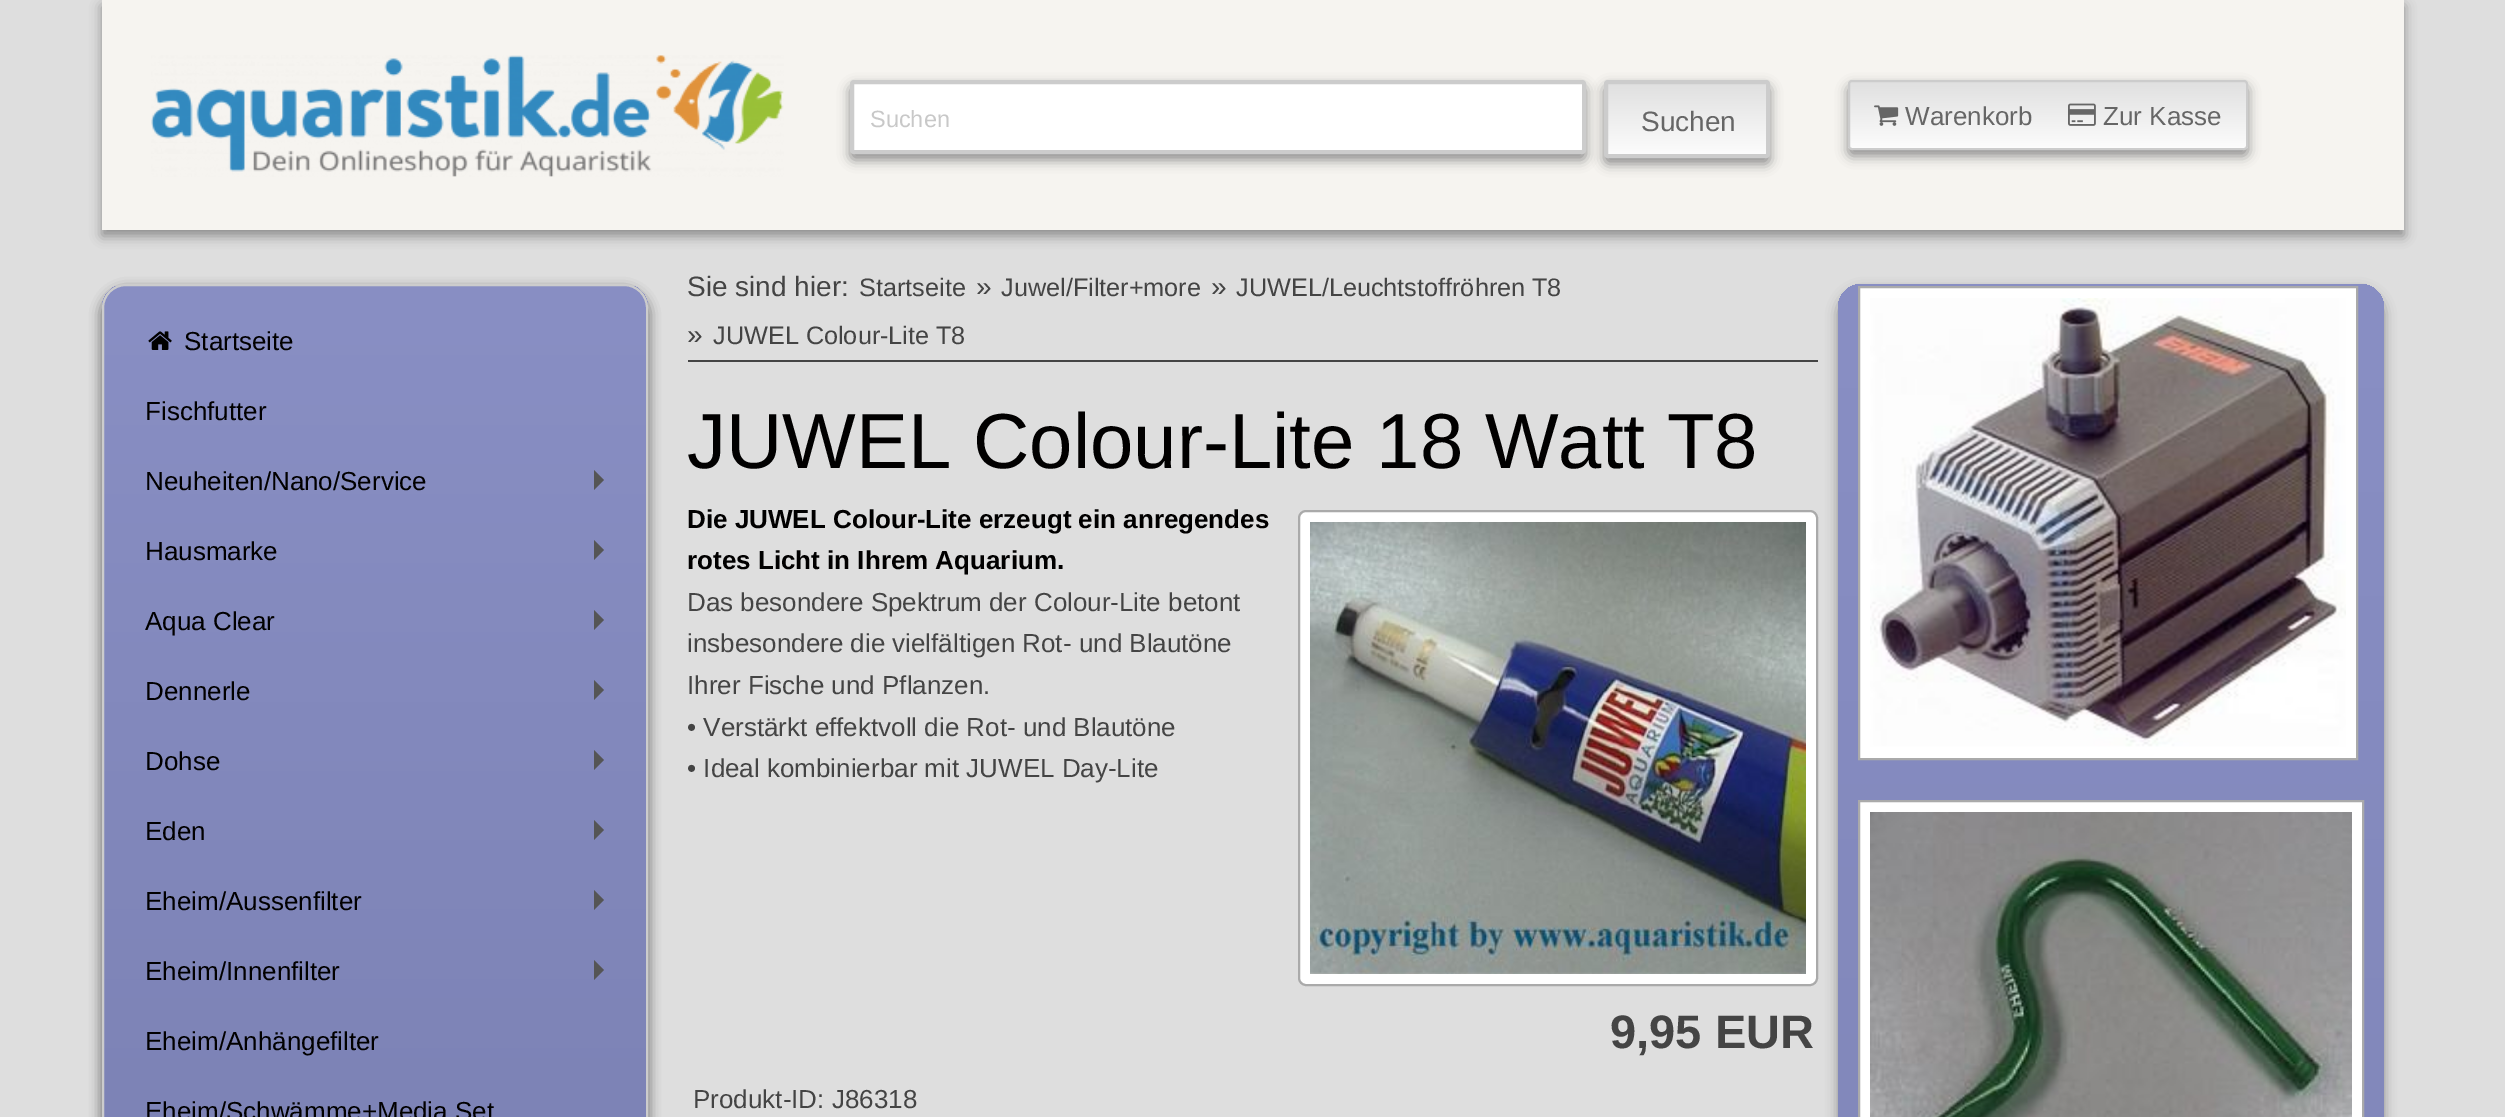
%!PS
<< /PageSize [2505 1117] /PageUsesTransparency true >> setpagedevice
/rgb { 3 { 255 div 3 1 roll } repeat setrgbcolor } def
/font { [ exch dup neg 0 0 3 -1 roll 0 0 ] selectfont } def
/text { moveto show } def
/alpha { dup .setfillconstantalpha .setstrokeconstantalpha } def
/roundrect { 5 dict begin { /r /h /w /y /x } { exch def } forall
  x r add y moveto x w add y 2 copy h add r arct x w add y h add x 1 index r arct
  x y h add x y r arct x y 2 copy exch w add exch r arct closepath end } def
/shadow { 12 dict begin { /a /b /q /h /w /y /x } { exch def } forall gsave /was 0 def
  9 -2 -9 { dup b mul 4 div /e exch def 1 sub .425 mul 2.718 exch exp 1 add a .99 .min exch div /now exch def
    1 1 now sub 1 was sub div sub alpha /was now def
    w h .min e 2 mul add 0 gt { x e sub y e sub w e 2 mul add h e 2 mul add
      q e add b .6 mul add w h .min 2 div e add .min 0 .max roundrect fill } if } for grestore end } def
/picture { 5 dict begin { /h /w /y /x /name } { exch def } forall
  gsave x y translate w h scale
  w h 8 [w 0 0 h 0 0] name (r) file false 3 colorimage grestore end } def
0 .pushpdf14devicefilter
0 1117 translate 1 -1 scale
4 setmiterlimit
222 222 222 rgb
0 0 2505 1117 rectfill
140 140 140 rgb
102 6 2302 230 0 6 1 shadow
246 244 240 rgb
102 0 2302 230 rectfill
(img_01.rgb) 151 55 633 122 picture
140 140 140 rgb
850 86 736 74 4 6 1 shadow
255 255 255 rgb
852 82 732 70 2 roundrect gsave fill grestore
204 204 204 rgb
4 setlinewidth
stroke
140 140 140 rgb
1604 86 166 78 4 6 1 shadow
gsave 1608 84 moveto 158 0 rlineto 0 70 rlineto -158 0 rlineto closepath clip newpath
<< /ShadingType 2 /ColorSpace /DeviceRGB /Coords [1687 84 1687 154] /Extend [true true] /Function << /FunctionType 2 /Domain [0 1] /C0 [0.878 0.878 0.878] /C1 [0.988 0.988 0.988] /N 1 >> >> shfill grestore
204 204 204 rgb
1606 82 162 74 2 roundrect stroke
140 140 140 rgb
1848 86 400 70 4 6 1 shadow
gsave
1848 80 400 70 4 roundrect clip newpath
gsave 1848 82 moveto 400 0 rlineto 0 66 rlineto -400 0 rlineto closepath clip newpath
<< /ShadingType 2 /ColorSpace /DeviceRGB /Coords [2048 82 2048 148] /Extend [true true] /Function << /FunctionType 2 /Domain [0 1] /C0 [0.878 0.878 0.878] /C1 [0.988 0.988 0.988] /N 1 >> >> shfill grestore
grestore
204 204 204 rgb
2 setlinewidth
1849 81 398 68 3 roundrect stroke
(img_02.rgb) 1874 105 25 21 picture
(img_03.rgb) 2068 103 28 23 picture
140 140 140 rgb
102 290 546 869 24 6 1 shadow
102 290 546 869 24 6 1 shadow
gsave
102 284 546 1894 24 roundrect clip newpath
gsave 102 286 moveto 546 0 rlineto 0 831 rlineto -546 0 rlineto closepath clip newpath
<< /ShadingType 2 /ColorSpace /DeviceRGB /Coords [375 286 375 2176] /Extend [true true] /Function << /FunctionType 2 /Domain [0 1] /C0 [0.537 0.561 0.769] /C1 [0.435 0.455 0.643] /N 1 >> >> shfill grestore
grestore
204 204 204 rgb
103 285 544 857 23 roundrect stroke
(img_04.rgb) 148 331 24 19 picture
85 85 85 rgb
594 490 moveto 0 -20 rlineto 10 10 rlineto closepath fill
594 560 moveto 0 -20 rlineto 10 10 rlineto closepath fill
594 630 moveto 0 -20 rlineto 10 10 rlineto closepath fill
594 700 moveto 0 -20 rlineto 10 10 rlineto closepath fill
594 770 moveto 0 -20 rlineto 10 10 rlineto closepath fill
594 840 moveto 0 -20 rlineto 10 10 rlineto closepath fill
594 910 moveto 0 -20 rlineto 10 10 rlineto closepath fill
594 980 moveto 0 -20 rlineto 10 10 rlineto closepath fill
68 68 68 rgb
688 360 1130 2 rectfill
255 255 255 rgb
1299 511 518 474 7 roundrect gsave fill grestore
170 170 170 rgb
stroke
(img_05.rgb) 1310 522 496 452 picture
140 140 140 rgb
1838 290 546 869 24 6 1 shadow
gsave 1838 284 546 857 24 roundrect clip newpath
<< /ShadingType 2 /ColorSpace /DeviceRGB /Coords [2111 284 2111 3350] /Extend [true true] /Function << /FunctionType 2 /Domain [0 1] /C0 [0.537 0.561 0.769] /C1 [0.435 0.455 0.643] /N 1 >> >> shfill grestore
255 255 255 rgb
1859 287 moveto 498 0 rlineto 0 472 rlineto -498 0 rlineto closepath gsave fill grestore
170 170 170 rgb
stroke
(img_06.rgb) 1870 298 476 449 picture
255 255 255 rgb
1859 801 moveto 504 0 rlineto 0 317 rlineto -504 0 rlineto closepath gsave fill grestore
170 170 170 rgb
stroke
(img_07.rgb) 1870 812 482 305 picture
/LiberationSans-Regular 23.5 font
200 200 200 rgb
(Suchen) 870 127 text
/LiberationSans-Regular 28 font
102 102 102 rgb
(Suchen) 1641 131 text
/LiberationSans-Regular 26 font
(Warenkorb) 1905 125 text
(Zur Kasse) 2103 125 text
1 0 0 rgb
(Startseite) 184 350 text
(Fischfutter) 145 420 text
(Neuheiten/Nano/Service) 145 490 text
(Hausmarke) 145 560 text
(Aqua Clear) 145 630 text
(Dennerle) 145 700 text
(Dohse) 145 770 text
(Eden) 145 840 text
(Eheim/Aussenfilter) 145 910 text
(Eheim/Innenfilter) 145 980 text
(Eheim/Anhängefilter) 145 1050 text
(Eheim/Schwämme+Media Set) 145 1120 text
/LiberationSans-Regular 28 font
68 68 68 rgb
(Sie sind hier:) 687 296 text
/LiberationSans-Regular 25.25 font
(Startseite) 859 296 text
/LiberationSans-Regular 28 font
(») 976 296 text
/LiberationSans-Regular 25.25 font
(Juwel/Filter+more) 1001 296 text
/LiberationSans-Regular 28 font
(») 1211 296 text
/LiberationSans-Regular 25.25 font
(JUWEL/Leuchtstoffröhren T8) 1236 296 text
/LiberationSans-Regular 28 font
(») 687 344 text
/LiberationSans-Regular 25.25 font
(JUWEL Colour-Lite T8) 713 344 text
/LiberationSans-Regular 78 font
1 0 0 rgb
(JUWEL Colour-Lite 18 Watt T8) 687 468 text
/LiberationSans-Bold 26 font
(Die JUWEL Colour-Lite erzeugt ein anregendes) 687 528 text
(rotes Licht in Ihrem Aquarium.) 687 569 text
/LiberationSans-Regular 26 font
68 68 68 rgb
(Das besondere Spektrum der Colour-Lite betont) 687 611 text
(insbesondere die vielfältigen Rot- und Blautöne) 687 652 text
(Ihrer Fische und Pflanzen.) 687 694 text
(• Verstärkt effektvoll die Rot- und Blautöne) 687 736 text
(• Ideal kombinierbar mit JUWEL Day-Lite) 687 777 text
/LiberationSans-Bold 47 font
(9,95 EUR) 1610 1048 text
/LiberationSans-Regular 26 font
(Produkt-ID: J86318) 693 1108 text
.poppdf14devicefilter showpage
